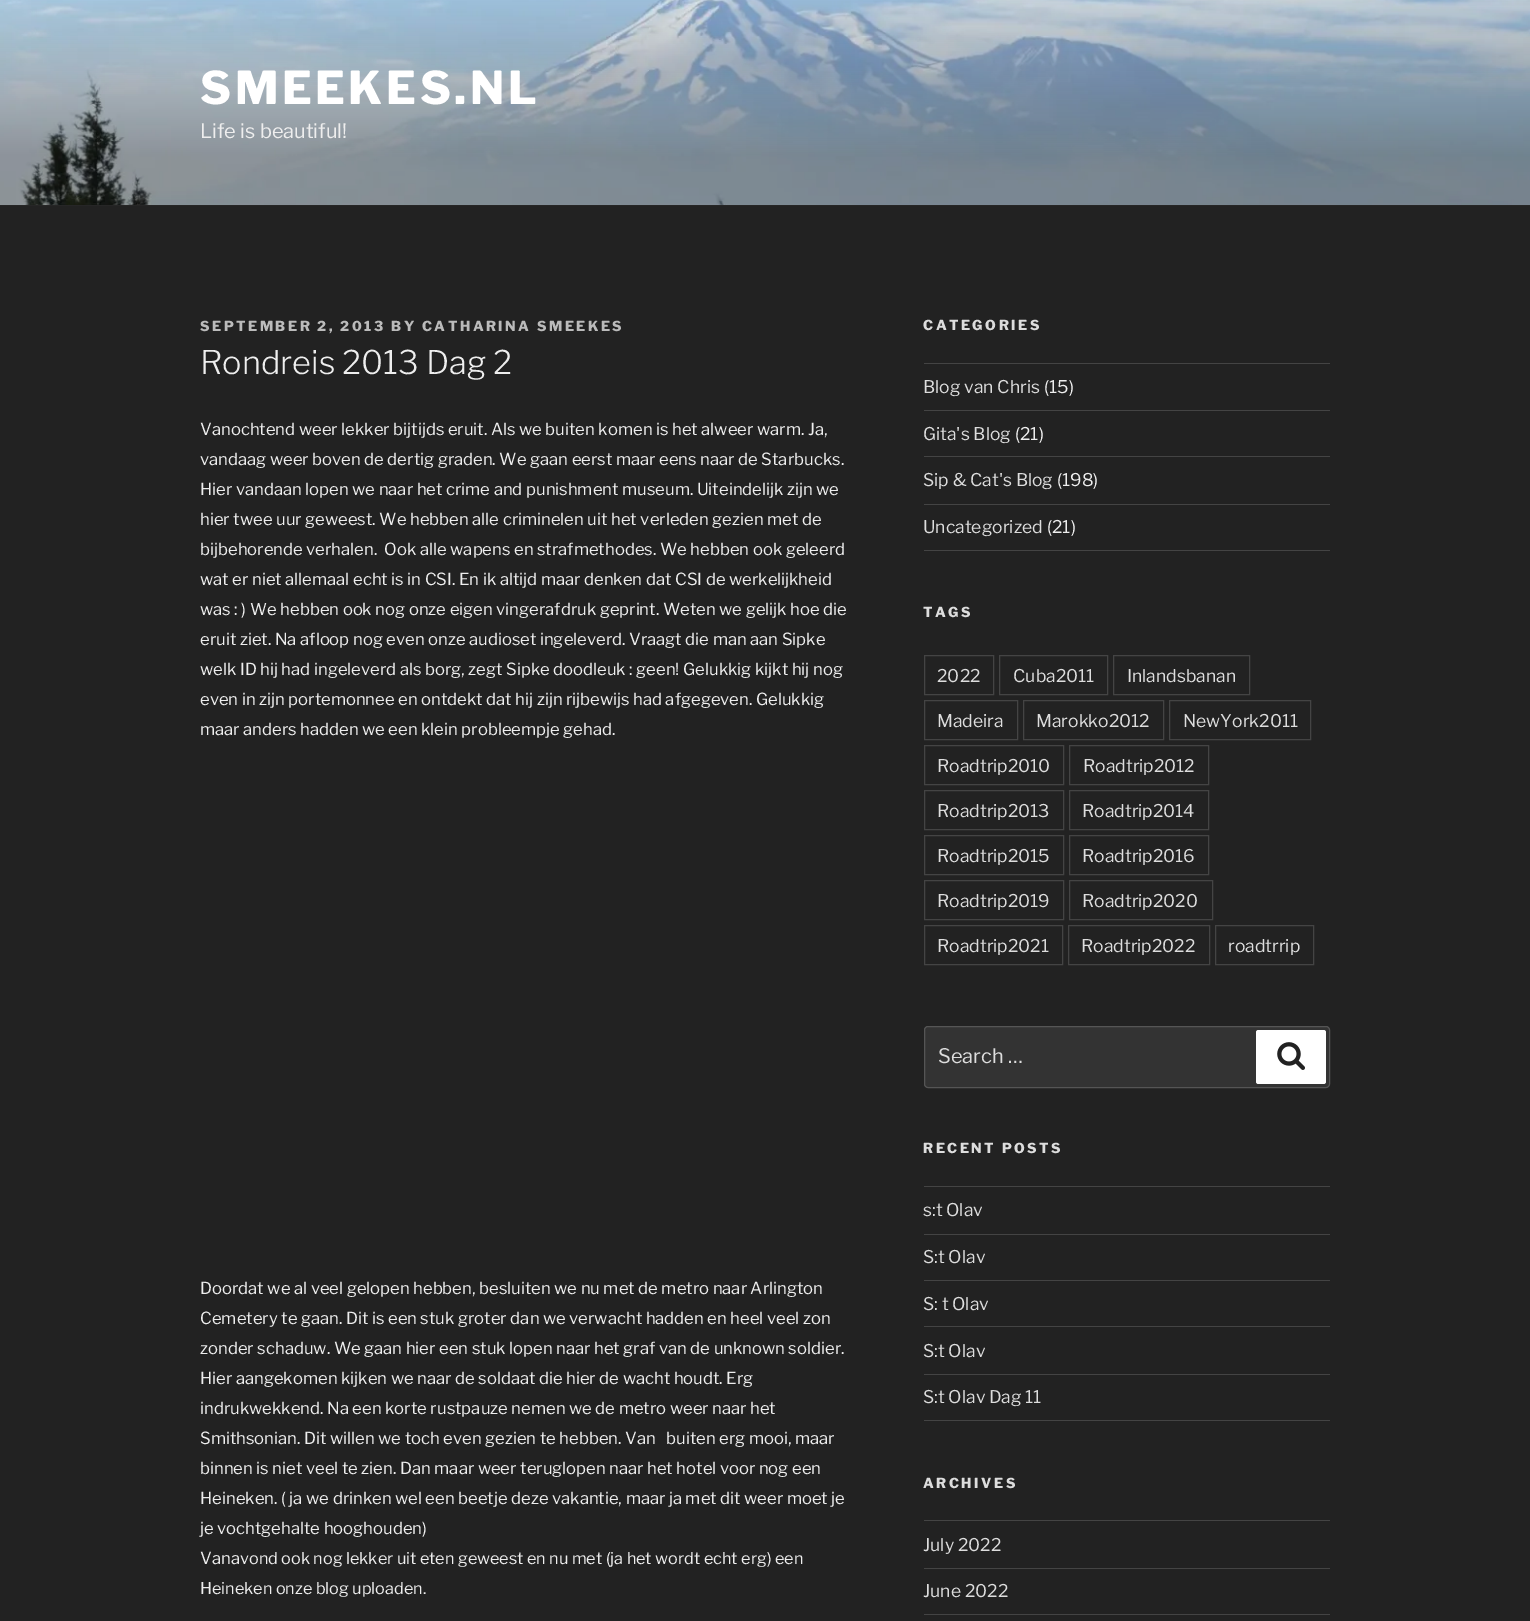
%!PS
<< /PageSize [1530 1621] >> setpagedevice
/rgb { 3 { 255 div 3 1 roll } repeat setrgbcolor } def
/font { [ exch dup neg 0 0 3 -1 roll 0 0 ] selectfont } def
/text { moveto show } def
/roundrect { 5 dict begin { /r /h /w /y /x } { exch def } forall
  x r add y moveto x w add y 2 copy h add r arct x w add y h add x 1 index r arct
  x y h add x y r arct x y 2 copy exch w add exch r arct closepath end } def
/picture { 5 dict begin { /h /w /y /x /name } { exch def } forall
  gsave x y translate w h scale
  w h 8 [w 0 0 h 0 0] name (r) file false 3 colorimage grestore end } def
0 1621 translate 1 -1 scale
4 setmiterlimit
34 34 34 rgb
0 0 1530 1621 rectfill
38 38 38 rgb
0 205 1530 1 rectfill
(img_01.rgb) 0 0 1530 205 picture
68 68 68 rgb
924 363 406 1 rectfill
924 410 406 1 rectfill
924 456 406 1 rectfill
924 504 406 1 rectfill
924 550 406 1 rectfill
924.5 655.5 69 39 rectstroke
999.5 655.5 108 39 rectstroke
1113.5 655.5 136 39 rectstroke
924.5 700.5 93 39 rectstroke
1023.5 700.5 140 39 rectstroke
1169.5 700.5 141 39 rectstroke
924.5 745.5 139 39 rectstroke
1069.5 745.5 139 39 rectstroke
924.5 790.5 139 39 rectstroke
1069.5 790.5 139 39 rectstroke
924.5 835.5 139 39 rectstroke
1069.5 835.5 139 39 rectstroke
924.5 880.5 139 39 rectstroke
1069.5 880.5 143 39 rectstroke
924.5 925.5 138 39 rectstroke
1068.5 925.5 141 39 rectstroke
1215.5 925.5 98 39 rectstroke
51 51 51 rgb
924.5 1026.5 405 61 3.5 roundrect gsave fill grestore
85 85 85 rgb
stroke
255 255 255 rgb
1256 1030 70 54 2.5 roundrect fill
(img_02.rgb) 1277 1042 28 28 picture
68 68 68 rgb
924 1186 406 1 rectfill
924 1234 406 1 rectfill
924 1280 406 1 rectfill
924 1326 406 1 rectfill
924 1374 406 1 rectfill
924 1420 406 1 rectfill
924 1520 406 1 rectfill
924 1568 406 1 rectfill
924 1614 406 1 rectfill
/LibreFranklin-Thin 45 font
255 255 255 rgb
200 104 moveto 3.6 0 (SMEEKES.NL) ashow
/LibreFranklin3-Thin 20 font
238 238 238 rgb
(Life is beautiful!) 200 138 text
/LibreFranklin-Thin 13.75 font
187 187 187 rgb
200 331 moveto 2.5 0 (SEPTEMBER 2, 2013 BY CATHARINA SMEEKES) ashow
/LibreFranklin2-Thin 32.5 font
238 238 238 rgb
(Rondreis 2013 Dag 2) 200 374 text
/LibreFranklin3-Thin 16.65 font
(Vanochtend weer lekker bijtijds eruit. Als we buiten komen is het alweer warm. Ja,) 200 435 text
(vandaag weer boven de dertig graden. We gaan eerst maar eens naar de Starbucks.) 200 465 text
(Hier vandaan lopen we naar het crime and punishment museum. Uiteindelijk zijn we) 200 495 text
(hier twee uur geweest. We hebben alle criminelen uit het verleden gezien met de) 200 525 text
(bijbehorende verhalen.  Ook alle wapens en strafmethodes. We hebben ook geleerd) 200 555 text
(wat er niet allemaal echt is in CSI. En ik altijd maar denken dat CSI de werkelijkheid) 200 585 text
(was : \)) 200 615 text
/LibreFranklin3-Thin 16.25 font
(W) 250 615 text
/LibreFranklin3-Thin 16.65 font
(e hebben ook nog onze eigen vingerafdruk geprint. Weten we gelijk hoe die) 267 615 text
(eruit ziet. Na afloop nog even onze audioset ingeleverd. Vraagt die man aan Sipke) 200 645 text
(welk ID hij had ingeleverd als borg, zegt Sipke doodleuk : geen! Gelukkig kijkt hij nog) 200 675 text
(even in zijn portemonnee en ontdekt dat hij zijn rijbewijs had afgegeven. Gelukkig) 200 705 text
(maar anders hadden we een klein probleempje gehad.) 200 735 text
(Doordat we al veel gelopen hebben, besluiten we nu met de metro naar Arlington) 200 1294 text
(Cemetery te gaan. Dit is een stuk groter dan we verwacht hadden en heel veel zon) 200 1324 text
(zonder schaduw. We gaan hier een stuk lopen naar het graf van de unknown soldier.) 200 1354 text
(Hier aangekomen kijken we naar de soldaat die hier de wacht houdt. Erg) 200 1384 text
(indrukwekkend. Na een korte rustpauze nemen we de metro weer naar het) 200 1414 text
(Smithsonian. Dit willen we toch even gezien te hebben. Van   buiten erg mooi, maar) 200 1444 text
(binnen is niet veel te zien. Dan maar weer teruglopen naar het hotel voor nog een) 200 1474 text
(Heineken. \( ja we drinken wel een beetje deze vakantie, maar ja met dit weer moet je) 200 1504 text
(je vochtgehalte hooghouden\)) 200 1534 text
(Vana) 200 1564 text
/LibreFranklin3-Thin 16.25 font
(vond ook nog lekker uit eten geweest en nu met \(ja het wordt echt erg\) een) 240 1564 text
(Heineken onze blog uploaden.) 200 1594 text
/LibreFranklin-Thin 13.75 font
221 221 221 rgb
923 330 moveto 2.5 0 (CATEGORIES) ashow
/LibreFranklin3-Thin 17.5 font
(Blog van Chris) 923 393 text
238 238 238 rgb
(\(15\)) 1044 393 text
221 221 221 rgb
(Gita's Blog) 923 440 text
238 238 238 rgb
(\(21\)) 1015 440 text
221 221 221 rgb
(Sip & Cat's Blog) 923 486 text
238 238 238 rgb
(\(198\)) 1057 486 text
221 221 221 rgb
(Uncategorized) 923 533 text
238 238 238 rgb
(\(21\)) 1047 533 text
/LibreFranklin-Thin 13.75 font
221 221 221 rgb
923 617 moveto 2.5 0 (TAGS) ashow
/LibreFranklin3-Thin 17.5 font
(2022) 937 682 text
(Cuba2011) 1013 682 text
(Inlandsbanan) 1127 682 text
(Madeira) 937 727 text
(Marokko2012) 1036 727 text
(NewYork2011) 1183 727 text
(Roadtrip2010) 937 772 text
(Roadtrip2012) 1083 772 text
(Roadtrip2013) 937 817 text
(Roadtrip2014) 1082 817 text
(Roadtrip2015) 937 862 text
(Roadtrip2016) 1082 862 text
(Roadtrip2019) 937 907 text
(Roadtrip2020) 1082 907 text
(Roadtrip2021) 937 952 text
(Roadtrip2022) 1081 952 text
(roadtrrip) 1228 952 text
/LibreFranklin3-Thin 20 font
(Search …) 938 1063 text
/LibreFranklin-Thin 13.75 font
923 1153 moveto 2.5 0 (RECENT POSTS) ashow
/LibreFranklin3-Thin 17.5 font
(s:t Olav) 923 1216 text
(S:t Olav) 923 1263 text
(S: t Olav) 923 1310 text
(S:t Olav) 923 1357 text
(S:t Olav Dag 11) 923 1403 text
/LibreFranklin-Thin 13.75 font
923 1488 moveto 2.5 0 (ARCHIVES) ashow
/LibreFranklin3-Thin 17.5 font
(July 2022) 923 1551 text
(June 2022) 923 1597 text
showpage
